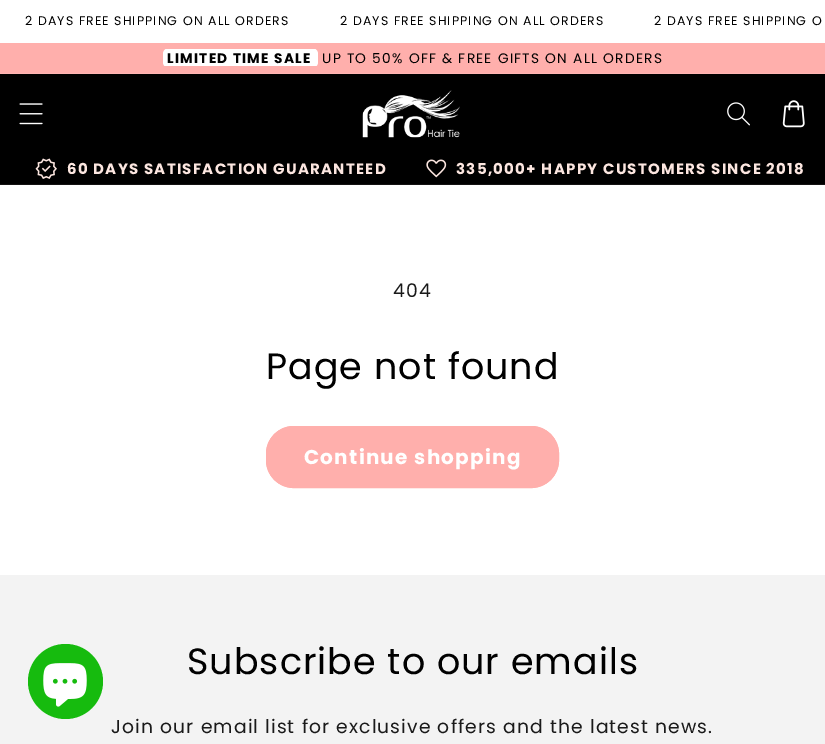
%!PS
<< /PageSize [825 744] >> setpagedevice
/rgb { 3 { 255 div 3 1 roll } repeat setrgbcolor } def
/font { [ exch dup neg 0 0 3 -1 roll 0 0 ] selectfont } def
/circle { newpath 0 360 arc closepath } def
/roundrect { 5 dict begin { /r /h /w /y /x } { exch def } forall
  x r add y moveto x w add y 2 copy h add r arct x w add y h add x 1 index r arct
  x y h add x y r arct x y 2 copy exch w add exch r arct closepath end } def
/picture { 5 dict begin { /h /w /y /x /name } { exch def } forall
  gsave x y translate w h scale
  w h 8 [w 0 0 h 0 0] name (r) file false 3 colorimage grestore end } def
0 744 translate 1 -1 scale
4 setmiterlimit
255 255 255 rgb
0 0 825 744 rectfill
255 175 172 rgb
0 43 825 30 rectfill
255 181 179 rgb
0 73 825 1 rectfill
gsave
19 49 787 17 rectclip
255 255 255 rgb
163 48 155 20 6 roundrect fill
grestore
0 0 0 rgb
0 74 825 110 rectfill
(img_01.rgb) 19 103 24 22 picture
(img_02.rgb) 362 90 98 48 picture
(img_03.rgb) 727 102 23 24 picture
(img_04.rgb) 782 100 23 28 picture
20 18 18 rgb
0 184 825 1 rectfill
(img_05.rgb) 35 158 22 21 picture
(img_06.rgb) 426 159 21 19 picture
243 243 243 rgb
0 575 825 169 rectfill
22 187 14 rgb
65.5 681.5 37.5 circle fill
(img_07.rgb) 43 663 44 44 picture
255 175 172 rgb
266 426 293 62 28 roundrect fill
3 setlinewidth
267.5 427.5 290 59 26.5 roundrect stroke
/Poppins-Regular 12.5 font
0 0 0 rgb
25 25 moveto 1.12 0 (2 DAYS FREE SHIPPING ON ALL ORDERS) ashow
340 25 moveto 1.12 0 (2 DAYS FREE SHIPPING ON ALL ORDERS) ashow
654 25 moveto 1.12 0 (2 DAYS FREE SHIPPING O) ashow
/Poppins-Bold 13.75 font
167 63 moveto 1.25 0 (LIMITED TIME SALE) ashow
/Poppins-Regular 13.75 font
322 63 moveto 1.25 0 (UP TO 50% OFF & FREE GIFTS ON ALL ORDERS) ashow
/Poppins-Bold 15 font
252 230 224 rgb
67 174 moveto 1.25 0 (60 DAYS SATISFACTION GUARANTEED) ashow
456 174 moveto 1.25 0 (335,000+ HAPPY CUSTOMERS SINCE 2018) ashow
/Poppins-Regular 18.75 font
26 26 26 rgb
393 297 moveto 1.12 0 (404) ashow
/Poppins-Regular 36.5 font
0 0 0 rgb
266 379 moveto 1 0 (Page not found) ashow
/Poppins-Bold 20 font
255 255 255 rgb
304 464 moveto 1.25 0 (Continue shopping) ashow
/Poppins-Regular 36.5 font
0 0 0 rgb
187 674 moveto 1 0 (Subscribe to our emails) ashow
/Poppins-Regular 18.75 font
26 26 26 rgb
111 733 moveto 1.12 0 (Join our email list for exclusive offers and the latest news.) ashow
showpage
